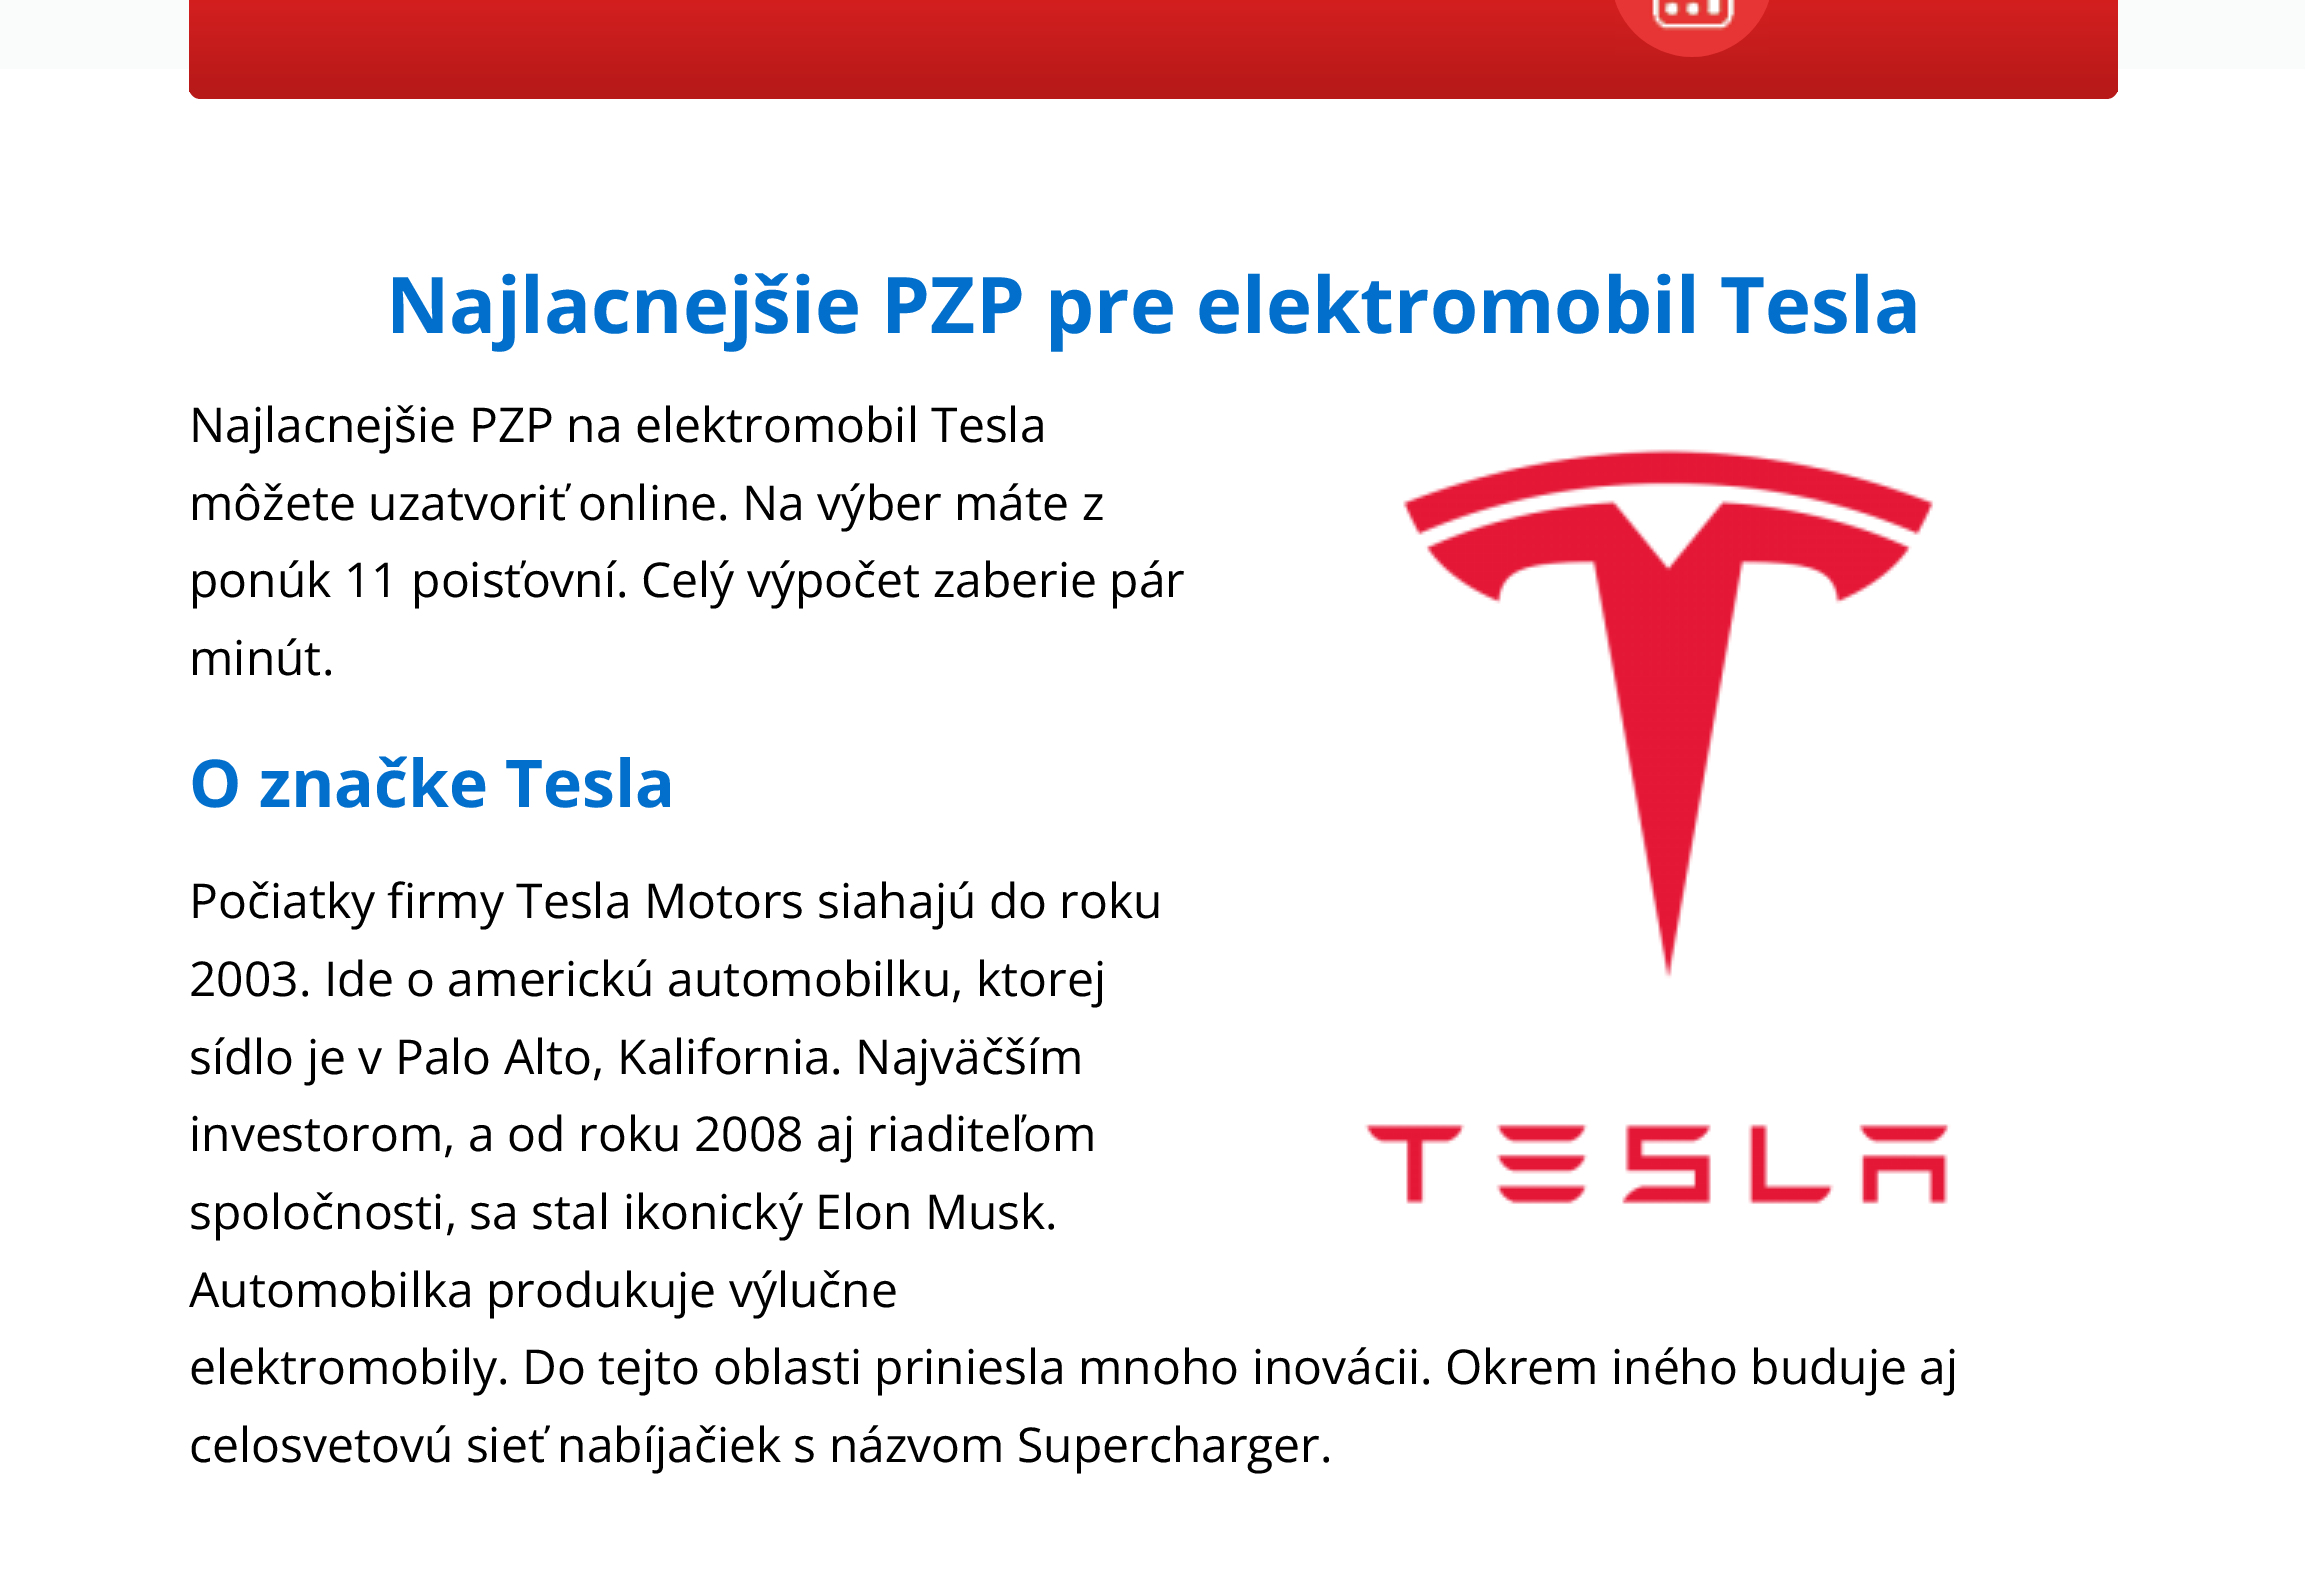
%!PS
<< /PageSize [2305 1578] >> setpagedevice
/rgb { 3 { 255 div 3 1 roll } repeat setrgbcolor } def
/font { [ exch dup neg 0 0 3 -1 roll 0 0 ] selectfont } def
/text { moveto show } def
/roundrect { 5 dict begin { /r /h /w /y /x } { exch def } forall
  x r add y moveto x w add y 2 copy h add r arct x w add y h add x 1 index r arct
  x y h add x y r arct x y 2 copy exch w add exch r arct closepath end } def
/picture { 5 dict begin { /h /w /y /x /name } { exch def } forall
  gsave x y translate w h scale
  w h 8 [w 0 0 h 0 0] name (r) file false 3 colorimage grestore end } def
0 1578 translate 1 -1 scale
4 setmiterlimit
255 255 255 rgb
0 0 2305 1578 rectfill
250 251 251 rgb
0 0 2305 69 rectfill
gsave
189 -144 1929 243 12 roundrect clip newpath
gsave 189 0 moveto 1929 0 rlineto 0 93 rlineto -1929 0 rlineto closepath clip newpath
<< /ShadingType 2 /ColorSpace /DeviceRGB /Coords [1154 -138 1154 93] /Extend [true true] /Function << /FunctionType 2 /Domain [0 1] /C0 [1 0.157 0.157] /C1 [0.718 0.098 0.098] /N 1 >> >> shfill grestore
grestore
183 25 25 rgb
2106 99 moveto 7 0 12 -5 12 -12 rcurveto 0 3 -5 6 -12 6 rcurveto -1905 0 rlineto -7 0 -12 -3 -12 -6 rcurveto 0 7 5 12 12 12 rcurveto closepath fill
(img_01.rgb) 1615 0 154 57 picture
(img_02.rgb) 1364 449 587 755 picture
/OpenSans-Bold 78 font
2 111 204 rgb
(Najlacnejšie PZP pre elektromobil Tesla) 386 333 text
/OpenSans-Regular 48 font
0 0 0 rgb
(Najlacnejšie PZP na elektromobil Tesla) 189 442 text
(môžete uzatvoriť online. Na výber máte z) 189 520 text
(ponúk 11 poisťovní. Celý výpočet zaberie pár) 189 597 text
(minút.) 189 675 text
/OpenSans-Bold 66 font
2 111 204 rgb
(O značke Tesla) 189 807 text
/OpenSans-Regular 48 font
0 0 0 rgb
(Počiatky firmy Tesla Motors siahajú do roku) 189 918 text
(2003. Ide o americkú automobilku, ktorej) 189 996 text
(sídlo je v Palo Alto, Kalifornia. Najväčším) 189 1074 text
(investorom, a od roku 2008 aj riaditeľom) 189 1151 text
(spoločnosti, sa stal ikonický Elon Musk.) 189 1229 text
(Automobilka produkuje výlučne) 189 1307 text
(elektromobily. Do tejto oblasti priniesla mnoho inovácii. Okrem iného buduje aj) 189 1384 text
(celosvetovú sieť nabíjačiek s názvom Supercharger.) 189 1462 text
showpage
